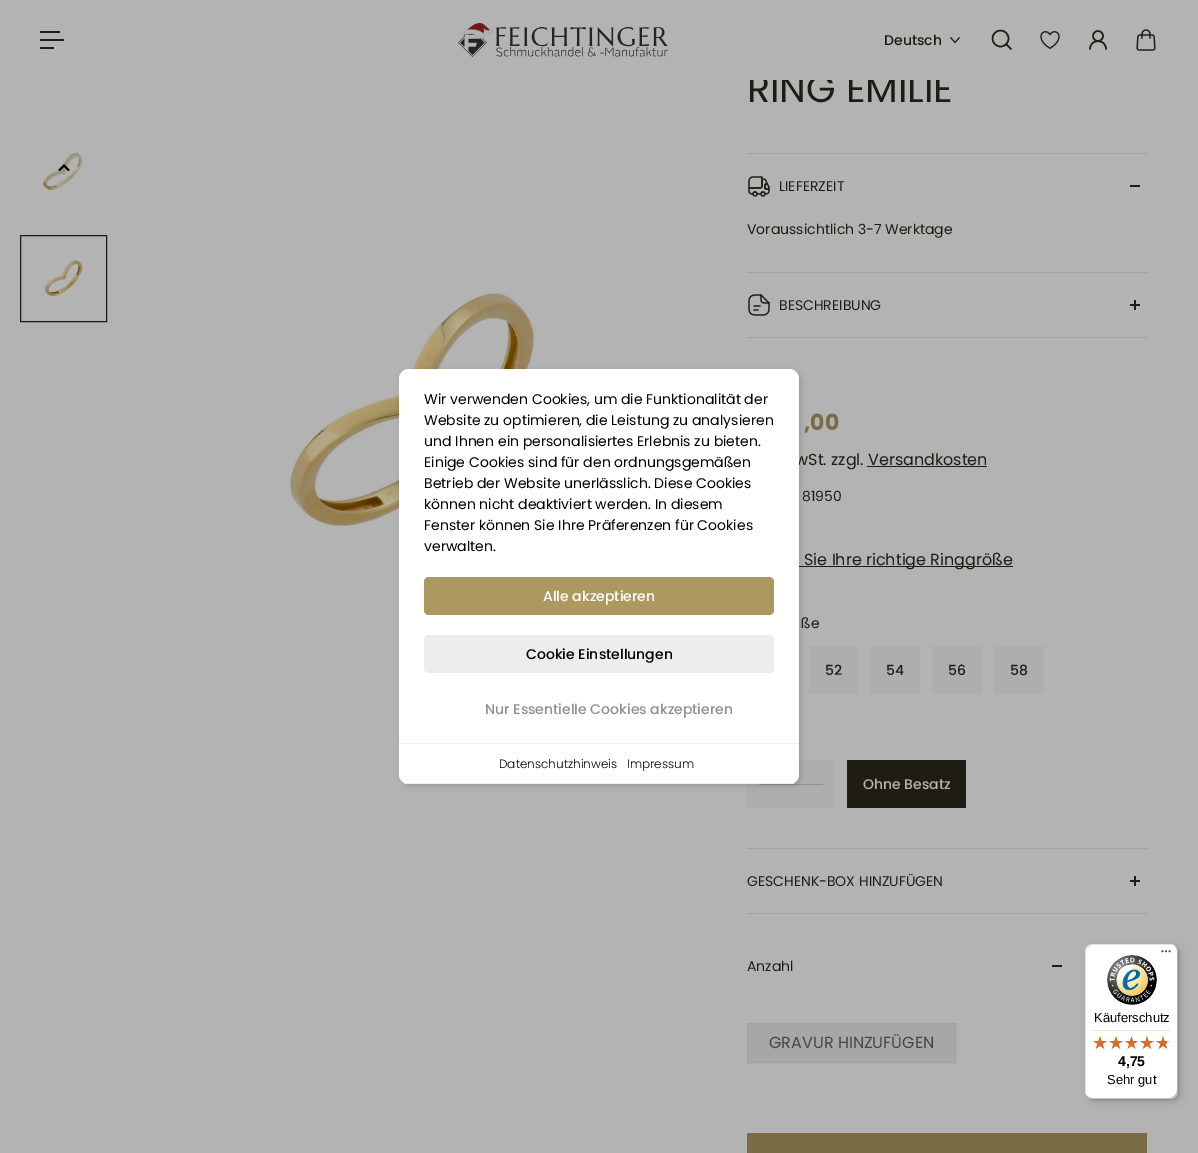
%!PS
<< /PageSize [1198 1153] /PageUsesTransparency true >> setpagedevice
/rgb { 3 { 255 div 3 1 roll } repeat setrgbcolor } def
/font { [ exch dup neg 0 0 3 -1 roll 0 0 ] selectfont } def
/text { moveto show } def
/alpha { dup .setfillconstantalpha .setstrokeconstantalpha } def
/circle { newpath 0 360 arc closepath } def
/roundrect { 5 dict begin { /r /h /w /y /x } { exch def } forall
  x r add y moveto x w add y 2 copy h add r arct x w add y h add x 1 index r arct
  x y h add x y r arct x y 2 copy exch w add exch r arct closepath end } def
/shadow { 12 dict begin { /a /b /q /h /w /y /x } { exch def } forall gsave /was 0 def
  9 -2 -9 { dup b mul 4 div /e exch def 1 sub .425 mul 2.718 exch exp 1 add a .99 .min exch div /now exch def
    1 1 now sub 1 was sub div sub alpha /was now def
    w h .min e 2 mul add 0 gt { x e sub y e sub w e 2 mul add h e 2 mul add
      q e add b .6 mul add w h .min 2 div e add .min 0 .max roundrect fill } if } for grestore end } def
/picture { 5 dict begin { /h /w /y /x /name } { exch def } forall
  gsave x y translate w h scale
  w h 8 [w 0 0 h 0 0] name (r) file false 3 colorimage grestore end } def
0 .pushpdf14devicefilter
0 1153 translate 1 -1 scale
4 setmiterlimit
179 179 179 rgb
0 0 1198 1153 rectfill
31 28 18 rgb
40 31 20 2 rectfill
40 39 24 2 rectfill
40 47 14 2 rectfill
(img_01.rgb) 458 23 210 34 picture
959.5 37.5 moveto -4.5 5 rlineto -4.5 -5 rlineto stroke
1.5 setlinewidth
1000.5 38.5 8 circle stroke
1 setlinecap
1 setlinejoin
1006 44 moveto 5 5 rlineto stroke
(img_02.rgb) 1040 31 20 18 picture
0 setlinecap
0 setlinejoin
1098 36 5 circle stroke
1 setlinecap
1 setlinejoin
1106 49 moveto 0 -10.5 -16 -10.5 -16 0 rcurveto stroke
(img_03.rgb) 1136 29 20 22 picture
(img_06.rgb) 290 293 245 233 picture
799 566 214 1 rectfill
174 174 174 rgb
809 646 49 48 rectfill
747 760 88 48 rectfill
146 145 143 rgb
759 784 64 1 rectfill
0 0 0 rgb
401 371 400 415 10 3 0.15 shadow
(img_04.rgb) 43 153 40 37 picture
0.5 alpha
179 179 179 rgb
64 168 24 circle fill
1 alpha
0 0 0 rgb
2 setlinewidth
0 setlinecap
0 setlinejoin
59 170.5 moveto 5 -5 rlineto 5 5 rlineto stroke
(img_05.rgb) 44 260 39 36 picture
31 28 18 rgb
1 setlinewidth
20.5 235.5 86 86 rectstroke
162 162 162 rgb
747 153 400 1 rectfill
747 272 400 1 rectfill
(img_07.rgb) 748 176 22 21 picture
31 28 18 rgb
1130 185 10 2 rectfill
162 162 162 rgb
747 337 400 1 rectfill
(img_08.rgb) 748 294 22 22 picture
31 28 18 rgb
1130 304 10 2 rectfill
1134 300 2 10 rectfill
867 466 120 1 rectfill
174 174 174 rgb
870 646 50 48 rectfill
932 646 50 48 rectfill
994 646 50 48 rectfill
31 28 18 rgb
847 760 119 48 rectfill
162 162 162 rgb
747 848 400 1 rectfill
747 913 400 1 rectfill
31 28 18 rgb
1130 880 10 2 rectfill
1134 876 2 10 rectfill
1052 965 10 2 rectfill
167 167 167 rgb
747.5 1023.5 moveto 208 0 rlineto 0 39 rlineto -208 0 rlineto closepath gsave fill grestore
162 162 162 rgb
stroke
121 107 67 rgb
747 1133 400 20 rectfill
0 0 0 rgb
1088 947 93 155 8 4 0.15 shadow
1086 945 93 155 8 1 0.15 shadow
255 255 255 rgb
1085 944 93 155 8 roundrect fill
0.1 alpha
0 0 0 rgb
1094 945 moveto 77 0 rlineto 2 0 4 1 6 3 rcurveto -2 -2 -4 -4 -7 -4 rcurveto -77 0 rlineto -4 0 -8 4 -8 8 rcurveto 0 139 rlineto 0 3 2 5 4 7 rcurveto -2 -2 -3 -4 -3 -6 rcurveto 0 -139 rlineto 0 -4 4 -8 8 -8 rcurveto closepath fill
0.2 alpha
1086 1095 moveto 2 2 4 4 7 4 rcurveto 77 0 rlineto 4 0 8 -4 8 -8 rcurveto 0 -139 rlineto 0 -3 -2 -5 -4 -7 rcurveto 2 2 3 4 3 6 rcurveto 0 139 rlineto 0 4 -4 8 -8 8 rcurveto -77 0 rlineto -2 0 -4 -1 -6 -3 rcurveto closepath fill
50 50 50 rgb
1087 1096 moveto 1 2 4 3 6 3 rcurveto 77 0 rlineto 4 0 8 -4 8 -8 rcurveto 0 -139 rlineto 0 -2 -1 -5 -3 -6 rcurveto 1 1 2 3 2 5 rcurveto 0 139 rlineto 0 5 -3 8 -8 8 rcurveto -77 0 rlineto -2 0 -4 -1 -5 -2 rcurveto closepath fill
1 alpha
(img_09.rgb) 1161 950 10 3 picture
0.3 alpha
255 255 255 rgb
1087 1096 moveto 1 2 4 3 6 3 rcurveto 77 0 rlineto 4 0 8 -4 8 -8 rcurveto 0 -1 rlineto 0 5 -4 8 -8 8 rcurveto -78 0 rlineto -2 0 -4 -1 -5 -2 rcurveto closepath fill
1 alpha
(img_10.rgb) 1107 955 50 50 picture
229 229 229 rgb
1093 1030 77 1 rectfill
(img_11.rgb) 1093 1036 14 13 picture
(img_11.rgb) 1109 1036 14 13 picture
(img_12.rgb) 1125 1036 13 13 picture
(img_11.rgb) 1140 1036 14 13 picture
(img_11.rgb) 1156 1036 14 13 picture
(img_13.rgb) 1093 1036 14 13 picture
(img_13.rgb) 1109 1036 14 13 picture
(img_14.rgb) 1125 1036 13 13 picture
(img_13.rgb) 1140 1036 14 13 picture
(img_15.rgb) 1156 1036 11 13 picture
/Poppins-Medium 14 font
31 28 18 rgb
(Deutsch) 884 45 text
/Poppins-Regular 38 font
(RING EMILIE) 747 102 text
179 179 179 rgb
749 75 202 5 rectfill
/Poppins-Regular 14 font
31 28 18 rgb
(LIEFERZEIT) 779 191 text
(Voraussichtlich 3-7 Werktage) 747 234 text
(BESCHREIBUNG) 779 310 text
/Poppins-Bold 22 font
121 107 67 rgb
(,00) 804 430 text
/Poppins-Regular 16 font
31 28 18 rgb
(wSt. zzgl. Versandkosten) 795 465 text
255 255 255 rgb
399 369 400 415 10 roundrect fill
/Poppins-Medium 14 font
145 145 145 rgb
(Nur Essentielle Cookies akzeptieren) 485 714 text
237 237 237 rgb
424 635 350 38 5 roundrect fill
0 0 0 rgb
(Cookie Einstellungen) 526 659 text
173 153 96 rgb
424 577 350 38 5 roundrect fill
255 255 255 rgb
(Alle akzeptieren) 543 601 text
399 743 moveto 400 0 rlineto 0 31 rlineto 0 5.5 -4.5 10 -10 10 rcurveto -380 0 rlineto -5.5 0 -10 -4.5 -10 -10 rcurveto closepath fill
/Poppins-Light 12 font
0 0 0 rgb
(Impressum) 627 768 text
(Datenschutzhinweis) 499 768 text
/Poppins-Regular 14 font
(verwalten.) 424 551 text
(Fenster können Sie Ihre Präferenzen für Cookies) 424 530 text
(können nicht deaktiviert werden. In diesem) 424 509 text
(Betrieb der Website unerlässlich. Diese Cookies) 424 488 text
(Einige Cookies sind für den ordnungsgemäßen) 424 467 text
(und Ihnen ein personalisiertes Erlebnis zu bieten.) 424 446 text
(Website zu optimieren, die Leistung zu analysieren) 424 425 text
(Wir verwenden Cookies, um die Funktionalität der) 424 404 text
gsave
399 369 400 415 10 roundrect clip newpath
238 238 238 rgb
399 783 400 1 rectfill
grestore
238 238 238 rgb
399 743 400 1 rectfill
31 28 18 rgb
(81950) 802 501 text
/Poppins-Regular 16 font
(Sie Ihre richtige Ringgröße) 804 565 text
/Poppins-Regular 14 font
(ße) 801 628 text
/Poppins-Medium 14 font
(52) 825 675 text
(54) 886 675 text
(56) 948 675 text
(58) 1010 675 text
179 179 179 rgb
(Ohne Besatz) 863 789 text
/Poppins-Regular 14 font
31 28 18 rgb
(GESCHENK-BOX HINZUFÜGEN) 747 886 text
(Anzahl) 747 971 text
/Poppins-Regular 16 font
70 70 70 rgb
(GRAVUR HINZUFÜGEN) 769 1048 text
/LiberationSans-Regular 13 font
0 0 0 rgb
(Käuferschutz) 1094 1022 text
/LiberationSans-Bold 14 font
(4,75) 1118 1066 text
/LiberationSans-Regular 13 font
(Sehr gut) 1107 1084 text
.poppdf14devicefilter showpage
